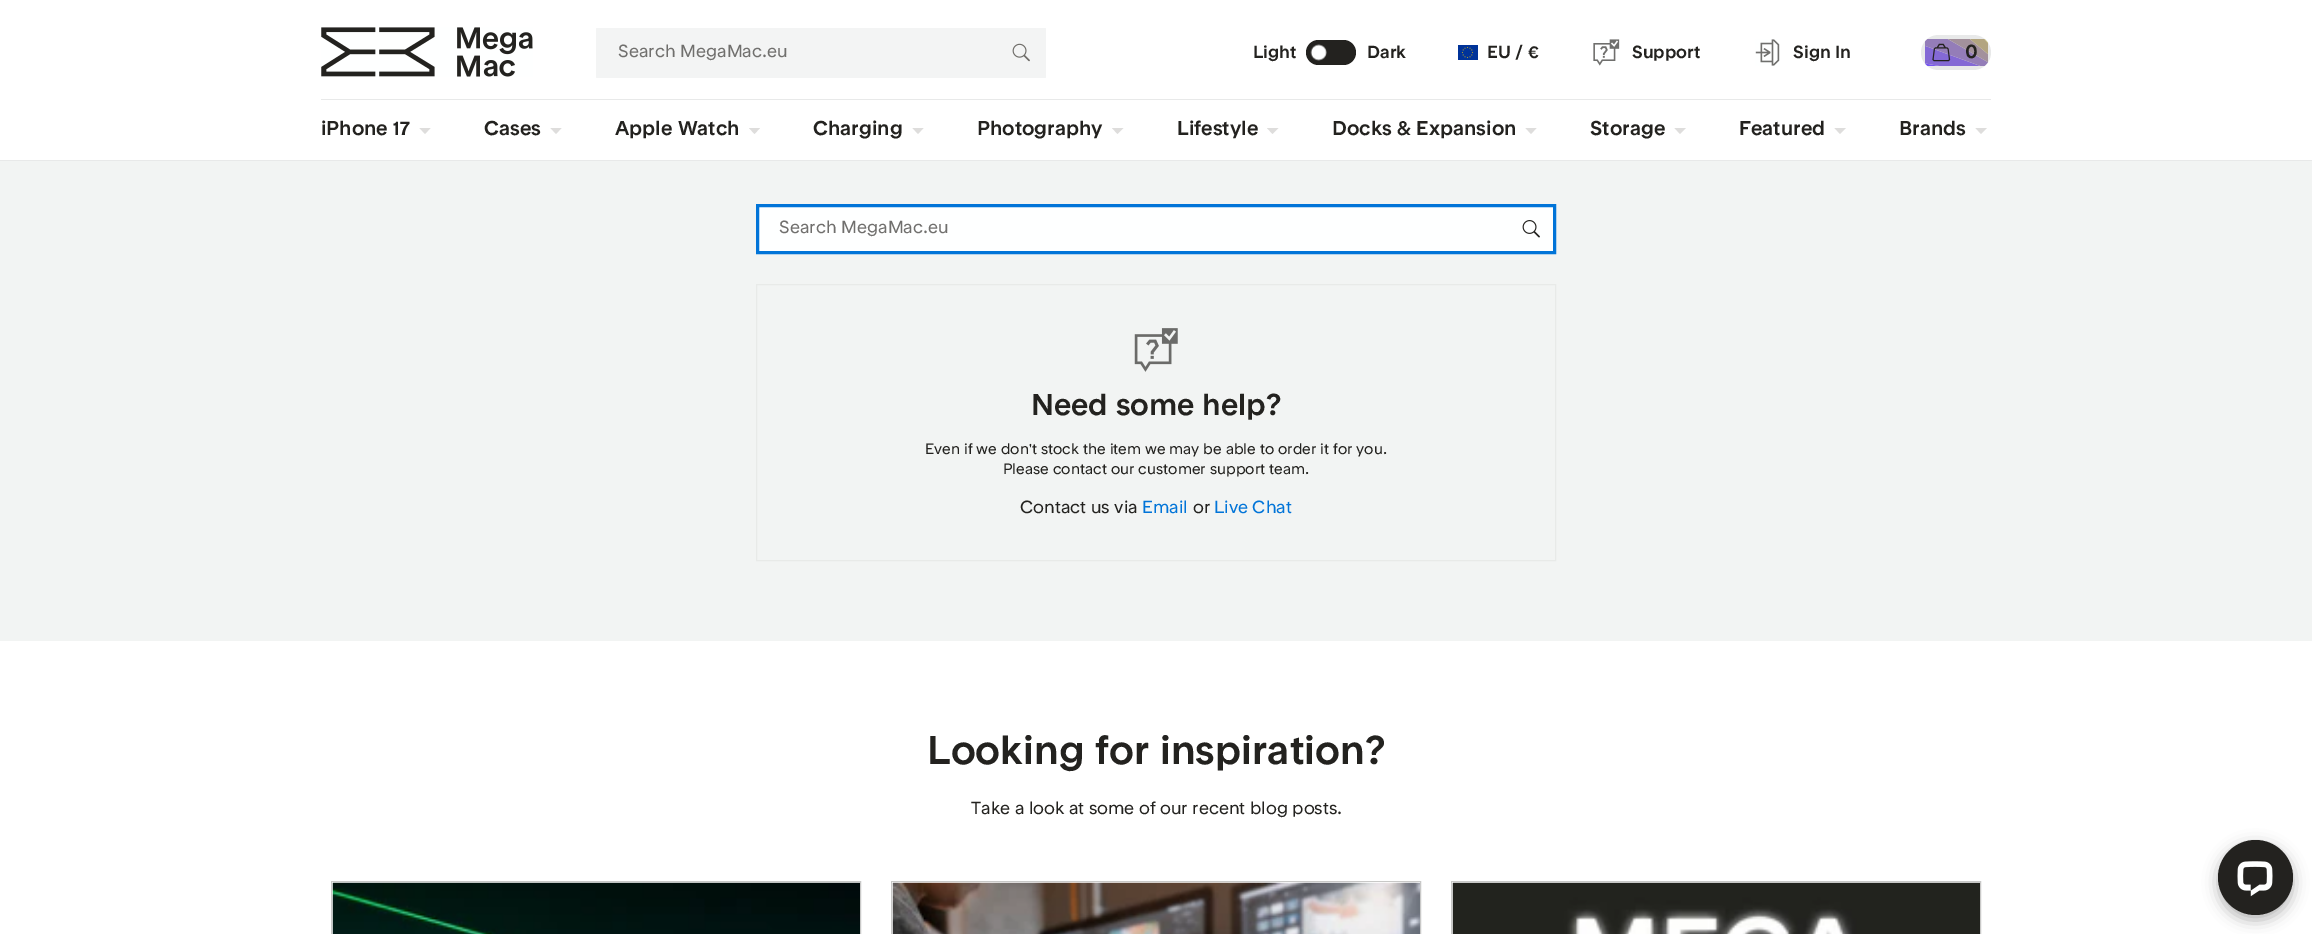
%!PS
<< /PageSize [2312 934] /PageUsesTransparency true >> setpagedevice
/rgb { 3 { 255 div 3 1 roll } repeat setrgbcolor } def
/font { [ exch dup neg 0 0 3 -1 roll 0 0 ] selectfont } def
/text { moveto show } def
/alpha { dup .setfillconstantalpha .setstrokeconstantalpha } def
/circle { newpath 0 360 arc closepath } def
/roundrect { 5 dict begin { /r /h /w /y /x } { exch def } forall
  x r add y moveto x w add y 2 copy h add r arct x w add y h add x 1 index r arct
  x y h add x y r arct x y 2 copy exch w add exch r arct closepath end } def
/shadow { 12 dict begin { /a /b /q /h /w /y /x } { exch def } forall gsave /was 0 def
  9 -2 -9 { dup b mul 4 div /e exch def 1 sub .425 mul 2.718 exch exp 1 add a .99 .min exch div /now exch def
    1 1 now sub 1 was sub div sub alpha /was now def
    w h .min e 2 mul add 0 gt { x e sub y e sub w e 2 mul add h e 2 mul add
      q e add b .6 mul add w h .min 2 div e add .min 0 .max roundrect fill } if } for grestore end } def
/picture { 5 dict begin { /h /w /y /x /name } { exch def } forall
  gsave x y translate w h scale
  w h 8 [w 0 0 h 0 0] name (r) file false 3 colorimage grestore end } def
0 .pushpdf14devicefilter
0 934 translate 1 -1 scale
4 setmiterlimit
255 255 255 rgb
0 0 2312 934 rectfill
232 233 233 rgb
0 160 2312 1 rectfill
(img_01.rgb) 321 27 212 50 picture
243 244 244 rgb
596 28 450 50 1 roundrect fill
(img_02.rgb) 1012 43 18 19 picture
35 34 31 rgb
1306 40 50 25 12.5 roundrect fill
(img_03.rgb) 1310 44 17 17 picture
(img_04.rgb) 1458 45 20 15 picture
(img_05.rgb) 1593 39 27 27 picture
(img_06.rgb) 1755 39 25 27 picture
232 233 233 rgb
1921 35 70 35 17.5 roundrect fill
(img_07.rgb) 1925 39 63 27 picture
(img_08.rgb) 1932 43 19 19 picture
321 99 1670 1 rectfill
222 221 220 rgb
430.5 128 moveto -5.5 6 rlineto -5.5 -6 rlineto closepath fill
561.5 128 moveto -5.5 6 rlineto -5.5 -6 rlineto closepath fill
760 128 moveto -5.5 6 rlineto -5.5 -6 rlineto closepath fill
923.5 128 moveto -5.5 6 rlineto -5.5 -6 rlineto closepath fill
1123.5 128 moveto -6 6 rlineto -5.5 -6 rlineto closepath fill
1278.5 128 moveto -6 6 rlineto -5.5 -6 rlineto closepath fill
1536.5 128 moveto -5.5 6 rlineto -5.5 -6 rlineto closepath fill
1686 128 moveto -6 6 rlineto -5.5 -6 rlineto closepath fill
1846 128 moveto -6 6 rlineto -5.5 -6 rlineto closepath fill
1987 128 moveto -6 6 rlineto -5.5 -6 rlineto closepath fill
242 244 243 rgb
0 161 2312 480 rectfill
254 255 255 rgb
757.5 205.5 moveto 797 0 rlineto 0 47 rlineto -797 0 rlineto closepath gsave fill grestore
1 116 216 rgb
3 setlinewidth
stroke
(img_09.rgb) 1522 220 18 18 picture
232 234 232 rgb
1 setlinewidth
756.5 284.5 799 276 rectstroke
(img_10.rgb) 1134 328 44 44 picture
200 200 199 rgb
331.5 881.5 529 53 rectstroke
(img_11.rgb) 332 882 528 52 picture
891.5 881.5 529 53 rectstroke
(img_12.rgb) 892 882 528 52 picture
1451.5 881.5 529 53 rectstroke
(img_13.rgb) 1452 882 528 52 picture
0 0 0 rgb
2218 845 75 75 37.5 7.5 0.3 shadow
35 34 31 rgb
2255.5 877.5 37.5 circle fill
(img_14.rgb) 2237 861 36 36 picture
/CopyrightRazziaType-Regular 17.5 font
112 111 109 rgb
(Search MegaMac.eu) 618 57 text
/CopyrightRazziaType-SemiBold 17.5 font
35 34 31 rgb
(Light) 1253 58 text
(Dark) 1367 58 text
(EU / €) 1487 58 text
(Support) 1632 58 text
(Sign In) 1793 58 text
/CopyrightRazziaType-SemiBold 20 font
(0) 1965 58 text
(iPhone 17) 321 135 text
(Cases) 484 135 text
(Apple Watch) 615 135 text
(Charging) 813 135 text
(Photography) 977 135 text
(Lifestyle) 1177 135 text
(Docks & Expansion) 1332 135 text
(Storage) 1590 135 text
(Featured) 1739 135 text
(Brands) 1899 135 text
/CopyrightRazziaType-Regular 17.5 font
112 111 109 rgb
(Search MegaMac.eu) 779 233 text
/CopyrightRazziaType-SemiBold 30 font
35 34 31 rgb
(Need some help?) 1031 415 text
/CopyrightRazziaType-Regular 15 font
(Even if we don't stock the item we may be able to order it for you.) 925 454 text
(Please contact our customer support team.) 1003 474 text
/CopyrightRazziaType-Regular 17.5 font
(Contact us via) 1020 513 text
1 116 216 rgb
(Email) 1142 513 text
35 34 31 rgb
(or) 1193 513 text
1 116 216 rgb
(Live Chat) 1214 513 text
/CopyrightRazziaType-SemiBold 40 font
35 34 31 rgb
(Looking for inspiration?) 927 764 text
/CopyrightRazziaType-Regular 17.5 font
(Take a look at some of our recent blog posts.) 971 814 text
.poppdf14devicefilter showpage
